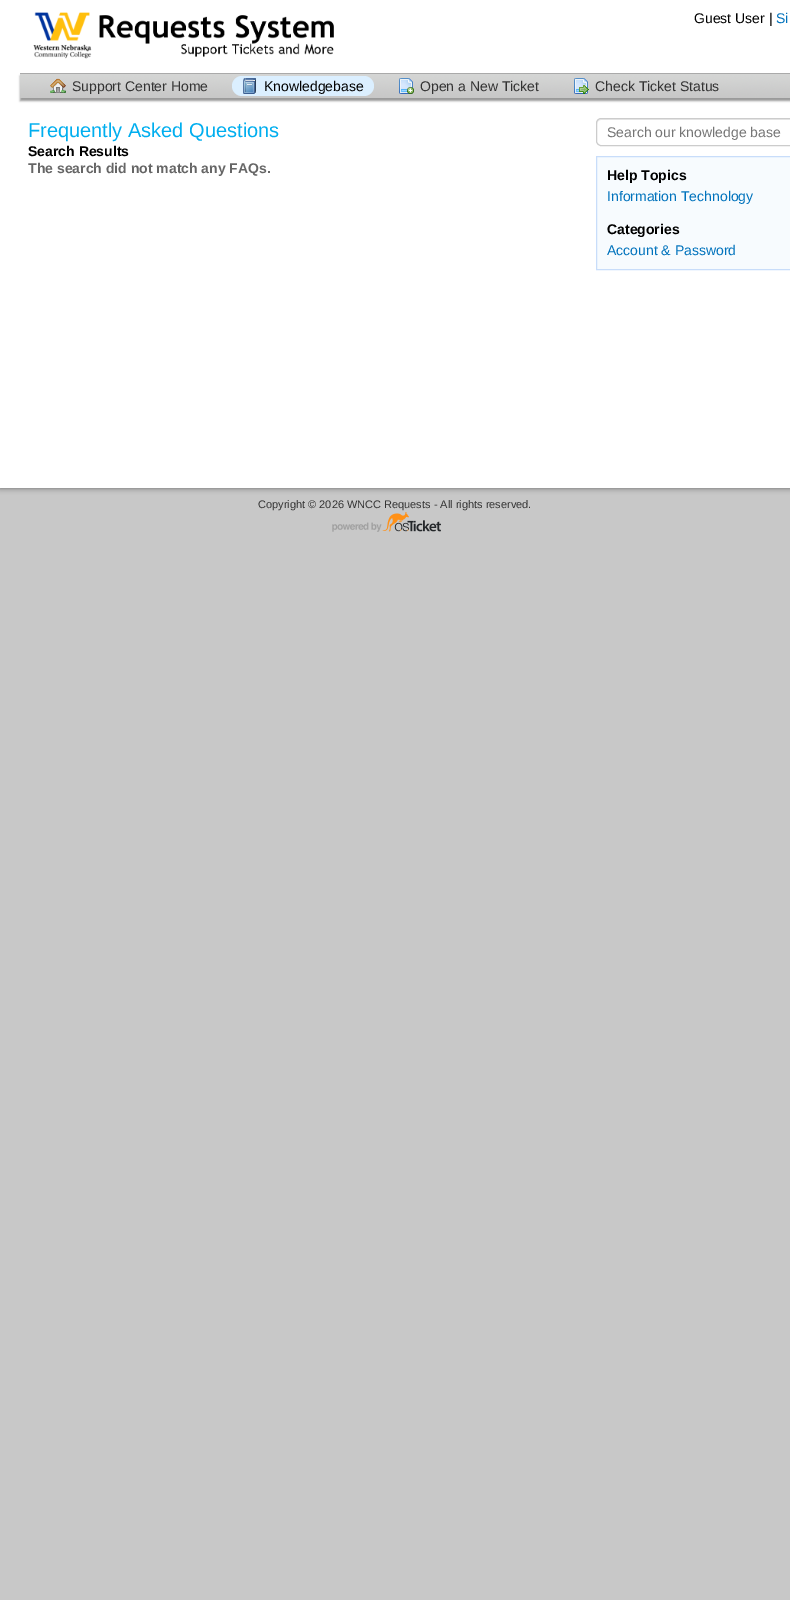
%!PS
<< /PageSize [790 1600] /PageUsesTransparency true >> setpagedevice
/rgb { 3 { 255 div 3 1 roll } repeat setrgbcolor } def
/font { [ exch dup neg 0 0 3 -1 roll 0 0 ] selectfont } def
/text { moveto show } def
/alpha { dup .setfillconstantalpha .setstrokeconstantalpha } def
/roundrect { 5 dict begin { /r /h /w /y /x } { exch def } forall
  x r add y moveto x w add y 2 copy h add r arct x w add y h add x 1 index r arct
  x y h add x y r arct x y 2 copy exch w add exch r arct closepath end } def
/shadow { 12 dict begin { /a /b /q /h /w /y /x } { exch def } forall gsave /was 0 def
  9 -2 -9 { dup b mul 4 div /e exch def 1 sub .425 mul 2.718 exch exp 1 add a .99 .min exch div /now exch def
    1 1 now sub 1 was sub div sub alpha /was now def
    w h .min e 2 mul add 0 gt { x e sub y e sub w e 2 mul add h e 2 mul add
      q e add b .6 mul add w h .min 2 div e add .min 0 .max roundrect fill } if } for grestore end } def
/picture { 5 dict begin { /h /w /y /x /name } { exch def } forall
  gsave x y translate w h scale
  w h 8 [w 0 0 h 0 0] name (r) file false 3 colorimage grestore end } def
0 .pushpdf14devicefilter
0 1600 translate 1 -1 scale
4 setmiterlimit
200 200 200 rgb
0 0 790 1600 rectfill
0 0 0 rgb
0 0 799 488 0 3 0.5 shadow
255 255 255 rgb
0 0 790 488 rectfill
(img_01.rgb) 33 12 301 47 picture
0 0 0 rgb
20 76 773 25 0 1 0.4 shadow
(img_02.rgb) 20 74 770 24 picture
170 170 170 rgb
20 73 770 1 rectfill
(img_03.rgb) 50 78 16 15 picture
219 239 255 rgb
232 76 142 20 10 roundrect fill
(img_04.rgb) 243 78 13 16 picture
(img_05.rgb) 399 78 15 16 picture
(img_06.rgb) 574 78 15 16 picture
236 236 236 rgb
601 120 moveto 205 0 rlineto 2 0 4 2 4 4 rcurveto 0 -1 rlineto 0 -2 -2 -4 -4 -4 rcurveto -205 0 rlineto -2 0 -4 2 -4 4 rcurveto 0 1 rlineto 0 -2 2 -4 4 -4 rcurveto closepath fill
204 204 204 rgb
596.5 118.5 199 27 4.5 roundrect stroke
247 251 254 rgb
596.5 156.5 moveto 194 0 rlineto 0 113 rlineto -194 0 rlineto closepath gsave fill grestore
200 221 250 rgb
stroke
(img_07.rgb) 332 512 109 20 picture
/LiberationSans-Regular 14 font
0 0 0 rgb
(Guest User |) 694 23 text
0 114 188 rgb
(Si) 776 23 text
51 51 51 rgb
(Support Center Home) 72 91 text
0 0 0 rgb
(Knowledgebase) 264 91 text
51 51 51 rgb
(Open a New Ticket) 420 91 text
(Check Ticket Status) 595 91 text
/LiberationSans-Regular 20 font
0 174 239 rgb
(Frequently Asked Questions) 28 137 text
/LiberationSans-Bold 14 font
0 0 0 rgb
(Search Results) 28 156 text
102 102 102 rgb
(The search did not match any FAQs.) 28 173 text
/LiberationSans-Regular 14 font
117 117 117 rgb
(Search our knowledge base) 607 137 text
/LiberationSans-Bold 14 font
0 0 0 rgb
(Help Topics) 607 180 text
/LiberationSans-Regular 14 font
0 114 188 rgb
(Information Technology) 607 201 text
/LiberationSans-Bold 14 font
0 0 0 rgb
(Categories) 607 234 text
/LiberationSans-Regular 14 font
0 114 188 rgb
(Account & Password) 607 255 text
/LiberationSans-Regular 11 font
51 51 51 rgb
(Copyright © 2026 WNCC Requests - All rights reserved.) 258 508 text
.poppdf14devicefilter showpage
